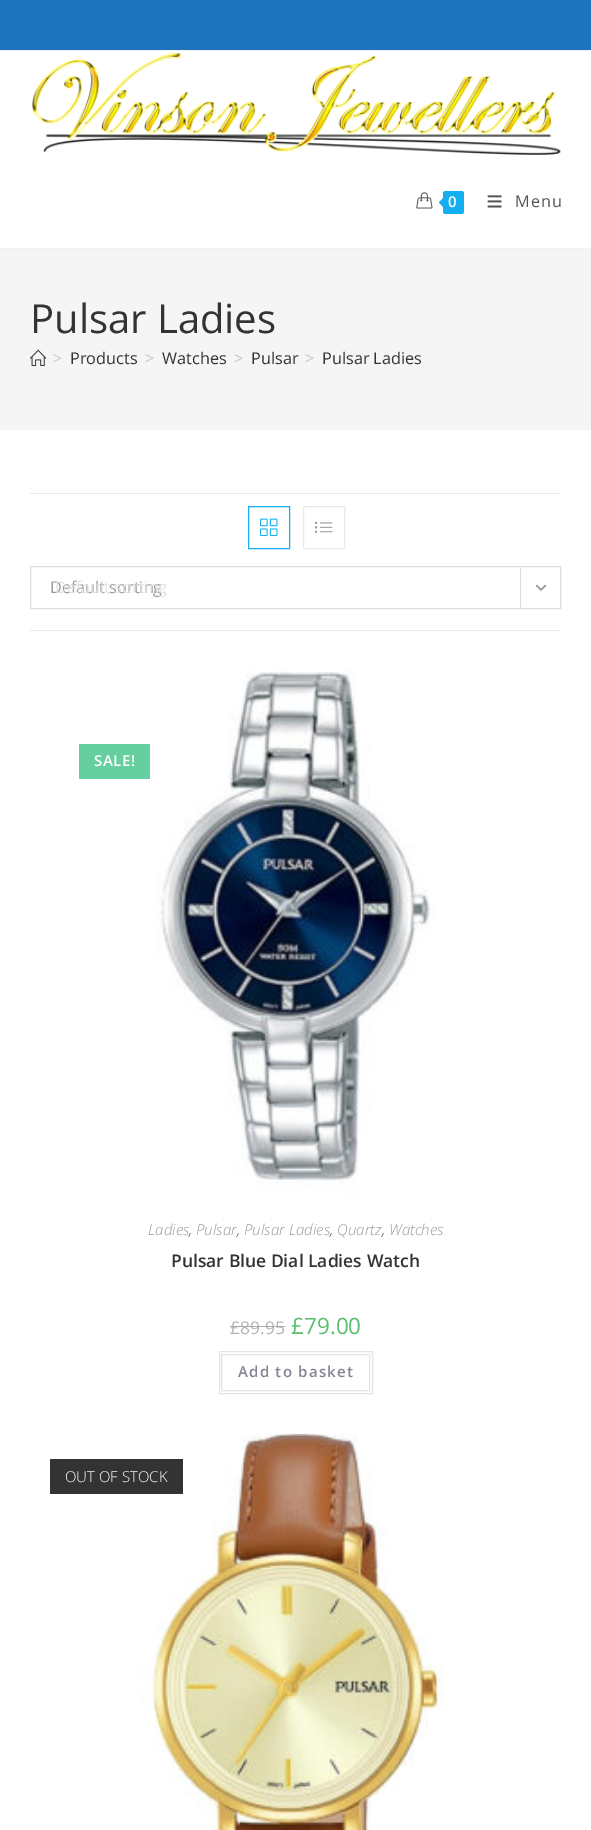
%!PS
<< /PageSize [591 1830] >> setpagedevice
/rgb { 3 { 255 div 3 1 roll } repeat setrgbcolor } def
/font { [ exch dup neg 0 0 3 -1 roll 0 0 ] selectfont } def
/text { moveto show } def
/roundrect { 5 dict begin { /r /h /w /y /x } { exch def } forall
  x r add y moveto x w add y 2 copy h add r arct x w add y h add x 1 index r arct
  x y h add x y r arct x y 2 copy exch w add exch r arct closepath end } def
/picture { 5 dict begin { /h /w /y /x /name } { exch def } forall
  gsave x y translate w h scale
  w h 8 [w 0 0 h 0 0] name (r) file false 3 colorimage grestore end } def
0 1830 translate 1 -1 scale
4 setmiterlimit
255 255 255 rgb
0 0 591 1830 rectfill
30 115 190 rgb
0 0 591 50 rectfill
241 241 241 rgb
0 50 591 1 rectfill
0 248 591 1 rectfill
(img_01.rgb) 32 53 529 102 picture
(img_02.rgb) 416 192 17 17 picture
19 175 240 rgb
443 191 21 23 2.5 roundrect fill
445 196 moveto 0 13 rlineto -6 -6.5 rlineto closepath fill
(img_03.rgb) 487 195 15 13 picture
245 245 245 rgb
0 249 591 181 rectfill
(img_04.rgb) 30 349 17 17 picture
234 234 234 rgb
30 493 531 1 rectfill
30 630 531 1 rectfill
19 175 240 rgb
248.5 506.5 41 42 rectstroke
(img_05.rgb) 260 518 18 19 picture
234 234 234 rgb
303.5 506.5 41 42 rectstroke
(img_06.rgb) 315 521 18 12 picture
221 221 221 rgb
30.5 566.5 530 42 rectstroke
520 568 1 40 rectfill
(img_07.rgb) 535 584 12 7 picture
(img_08.rgb) 25 656 534 542 picture
(img_09.rgb) 25 657 534 540 picture
101 207 159 rgb
79 744 71 35 rectfill
228 228 228 rgb
219.5 1351.5 153 42 rectstroke
221.5 1354.5 148 36 rectstroke
(img_10.rgb) 37 1433 506 397 picture
51 51 51 rgb
50 1459 133 35 rectfill
/OpenSans-SemiBold 15 font
255 255 255 rgb
448 207 moveto 1 0 (0) ashow
/OpenSans-Regular 16.25 font
85 85 85 rgb
515 207 moveto 1 0 (Menu) ashow
/OpenSans-Regular 40 font
51 51 51 rgb
(Pulsar Ladies) 30 333 text
/OpenSans-Regular 16.25 font
198 198 198 rgb
(>) 53 364 text
51 51 51 rgb
(Products) 70 364 text
198 198 198 rgb
(>) 145 364 text
51 51 51 rgb
(Watches) 162 364 text
198 198 198 rgb
(>) 234 364 text
51 51 51 rgb
(Pulsar) 251 364 text
198 198 198 rgb
(>) 305 364 text
51 51 51 rgb
(Pulsar Ladies) 322 364 text
153 153 153 rgb
(Default sorting) 50 593 text
226 226 226 rgb
(Default sorting) 55 593 text
/OpenSans-SemiBold 15 font
255 255 255 rgb
94 766 moveto 0.5 0 (SALE!) ashow
/OpenSans-LightItalic 15 font
153 153 153 rgb
(Ladies) 148 1235 text
74 74 74 rgb
(,) 189 1235 text
153 153 153 rgb
(Pulsar) 196 1235 text
(Pulsar Ladies) 244 1235 text
(Quartz) 337 1235 text
(Watches) 389 1235 text
74 74 74 rgb
(,) 237 1235 text
(,) 330 1235 text
(,) 382 1235 text
/OpenSans-SemiBold 17.5 font
51 51 51 rgb
(Pulsar Blue Dial Ladies Watch) 171 1267 text
/OpenSans-Regular 17.5 font
179 179 179 rgb
(£89.95) 230 1334 text
170 170 170 rgb
230 1326 55 1 rectfill
/OpenSans-Regular 22.5 font
87 191 109 rgb
(£79.00) 291 1334 text
/OpenSans-SemiBold 15 font
132 132 148 rgb
238 1377 moveto 1.25 0 (Add to basket) ashow
/OpenSans-Light 15 font
255 255 255 rgb
(OUT OF STOCK) 65 1482 text
showpage
